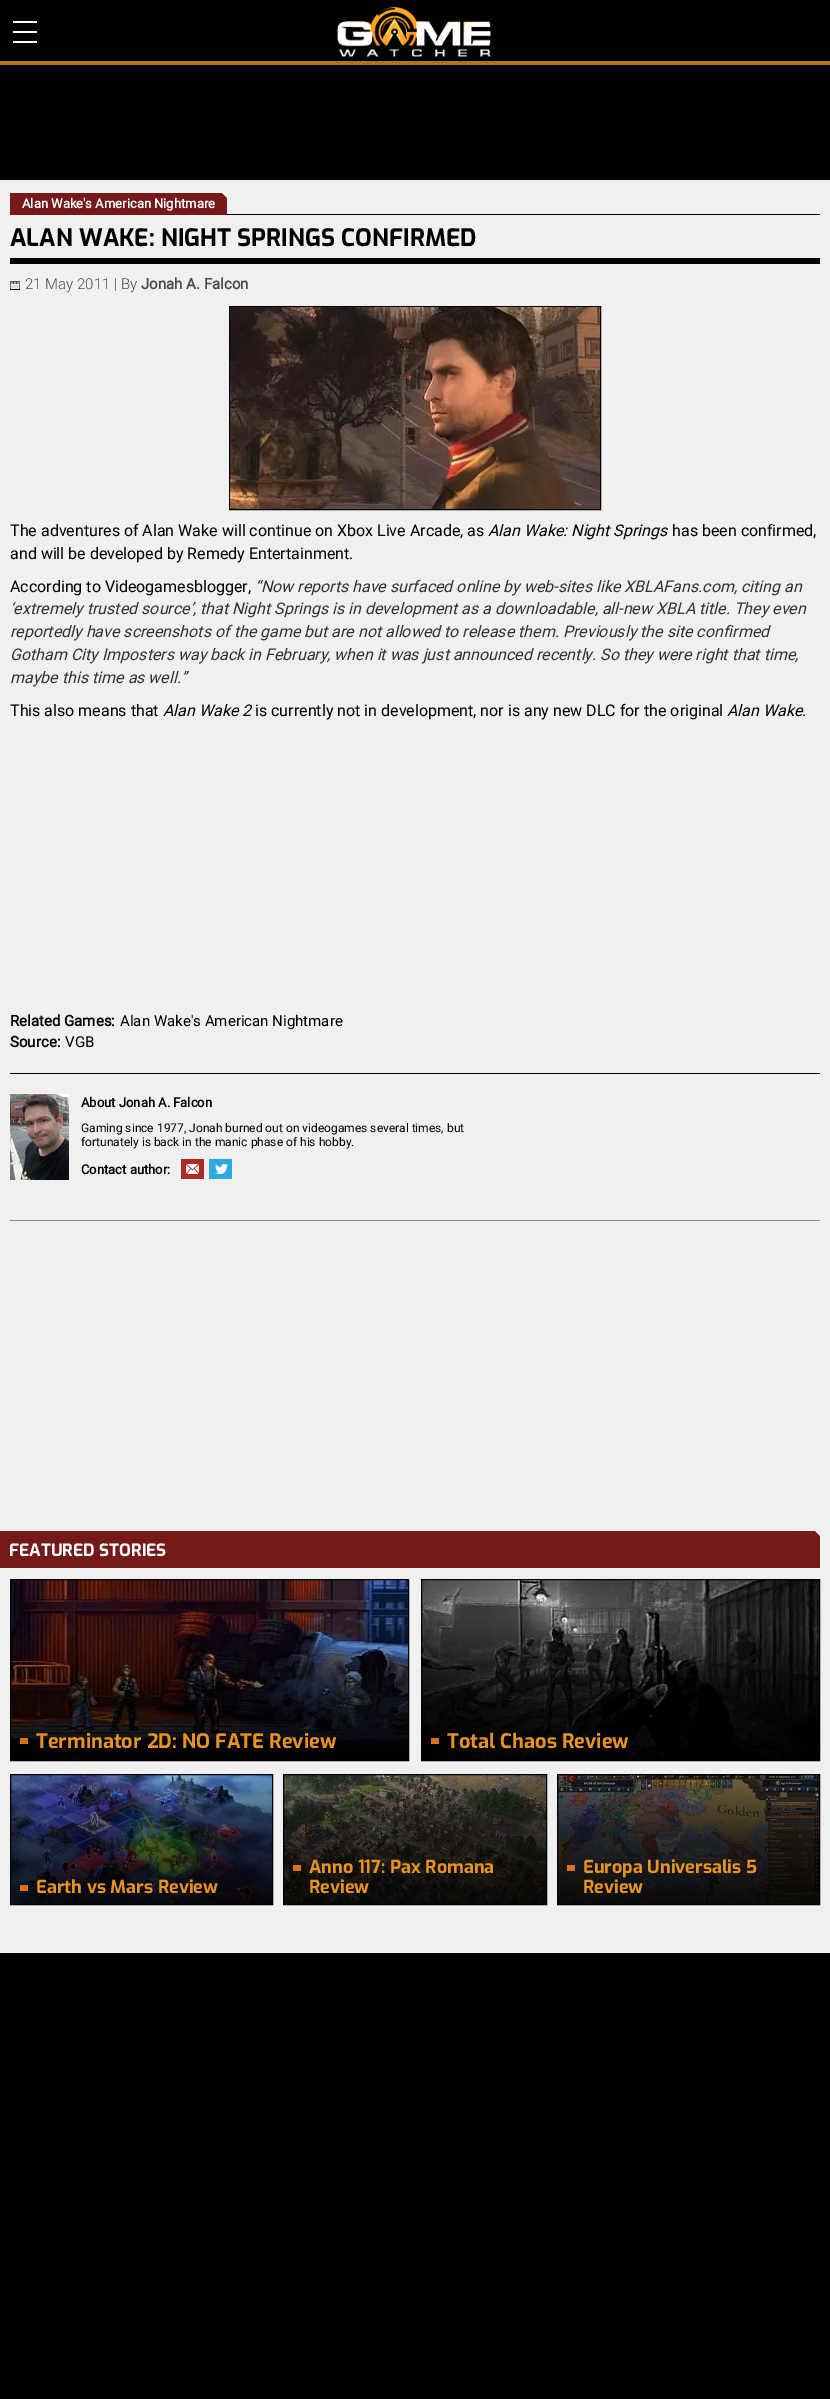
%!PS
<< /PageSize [830 2399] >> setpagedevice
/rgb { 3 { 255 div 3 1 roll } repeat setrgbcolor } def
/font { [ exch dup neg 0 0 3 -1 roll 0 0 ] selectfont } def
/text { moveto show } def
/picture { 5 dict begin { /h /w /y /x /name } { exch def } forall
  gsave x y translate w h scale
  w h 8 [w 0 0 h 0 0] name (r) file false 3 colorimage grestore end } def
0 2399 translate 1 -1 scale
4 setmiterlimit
0 0 0 rgb
0 0 830 2399 rectfill
175 117 25 rgb
0 61 830 4 rectfill
255 255 255 rgb
13 31 24 2 rectfill
13 21 24 2 rectfill
13 41 24 2 rectfill
(img_01.rgb) 337 7 154 50 picture
240 240 240 rgb
0 180 830 1773 rectfill
0 0 0 rgb
227 214 593 1 rectfill
118 25 25 rgb
10 193 217 22 rectfill
240 240 240 rgb
227 188 moveto 0 10 rlineto -5 -5 rlineto closepath fill
0 0 0 rgb
10 258 810 6 rectfill
(img_02.rgb) 10 281 10 9 picture
229.5 306.5 371 203 rectstroke
(img_03.rgb) 230 307 370 202 picture
10 1073 810 1 rectfill
(img_04.rgb) 10 1094 59 86 picture
169 44 42 rgb
181 1159 23 20 rectfill
(img_05.rgb) 186 1164 13 10 picture
43 169 225 rgb
209 1159 23 20 rectfill
(img_06.rgb) 215 1164 13 10 picture
137 140 145 rgb
10 1220 810 1 rectfill
118 25 25 rgb
0 1531 820 37 rectfill
240 240 240 rgb
820 1526 moveto 0 10 rlineto -5 -5 rlineto closepath fill
(img_07.rgb) 11 1580 397 180 picture
0 0 0 rgb
10.5 1579.5 398 181 rectstroke
221 111 29 rgb
20 1738 8 6 rectfill
(img_08.rgb) 422 1580 397 180 picture
0 0 0 rgb
421.5 1579.5 398 181 rectstroke
221 111 29 rgb
431 1738 8 6 rectfill
(img_09.rgb) 11 1775 261 129 picture
0 0 0 rgb
10.5 1774.5 262 130 rectstroke
221 111 29 rgb
20 1885 8 6 rectfill
(img_10.rgb) 284 1775 262 129 picture
0 0 0 rgb
283.5 1774.5 263 130 rectstroke
221 111 29 rgb
293 1865 8 6 rectfill
(img_11.rgb) 558 1775 261 129 picture
0 0 0 rgb
557.5 1774.5 262 130 rectstroke
221 111 29 rgb
567 1865 8 6 rectfill
/Roboto-Bold 13 font
255 255 255 rgb
(Alan Wake's American Nightmare) 22 208 text
/Exo-Bold 24 font
0 0 0 rgb
(ALAN WAKE: NIGHT SPRINGS CONFIRMED) 10 246 text
/Roboto-Light 15 font
72 76 82 rgb
(21 May 2011 | By) 25 289 text
/Roboto-Bold 15 font
(Jonah A. Falcon) 141 289 text
/Roboto-Regular 16 font
0 0 0 rgb
(The adventures of Alan Wake will continue on Xbox Live Arcade, as) 10 536 text
/Roboto-Italic 16 font
(Alan Wake: Night Springs) 488 536 text
/Roboto-Regular 16 font
(has been confirmed,) 672 536 text
(and will be developed by Remedy Entertainment.) 10 559 text
(According to Videogamesblogger,) 10 592 text
/Roboto-Italic 16 font
51 51 51 rgb
(“Now reports have surfaced online by web-sites like XBLAFans.com, citing an) 255 592 text
(‘extremely trusted source’, that Night Springs is in development as a downloadable, all-new XBLA title. They even) 10 614 text
(reportedly have screenshots of the game but are not allowed to release them. Previously the site confirmed) 10 637 text
(Gotham City Imposters way back in February, when it was just announced recently. So they were right that time,) 10 660 text
(maybe this time as well.”) 10 683 text
/Roboto-Regular 16 font
0 0 0 rgb
(This also means that) 10 716 text
/Roboto-Italic 16 font
(Alan Wake 2) 163 716 text
/Roboto-Regular 16 font
(is currently not in development, nor is any new DLC for the original) 255 716 text
/Roboto-Italic 16 font
(Alan Wake) 727 716 text
/Roboto-Regular 16 font
(.) 802 716 text
/Roboto-Bold 15 font
(Related Games:) 10 1026 text
/Roboto-Regular 15 font
(Alan Wake's American Nightmare) 120 1026 text
/Roboto-Bold 15 font
(Source:) 10 1047 text
/Roboto-Regular 15 font
(VGB) 65 1047 text
/Roboto-Bold 13 font
(About Jonah A. Falcon) 81 1107 text
/Roboto-Regular 12 font
(Gaming since 1977, Jonah burned out on videogames several times, but) 81 1132 text
(fortunately is back in the manic phase of his hobby.) 81 1146 text
/Roboto-Bold 13 font
(Contact author:) 81 1174 text
/Exo-Bold 17 font
255 255 255 rgb
(FEATURED STORIES) 9 1556 text
/Exo-Bold 20 font
232 146 35 rgb
(Terminator 2D: NO FATE Review) 36 1748 text
(Total Chaos Review) 447 1748 text
/Exo-Bold 18 font
(Earth vs Mars Review) 36 1893 text
(Anno 117: Pax Romana) 309 1873 text
(Review) 309 1893 text
(Europa Universalis 5) 583 1873 text
(Review) 583 1893 text
showpage
